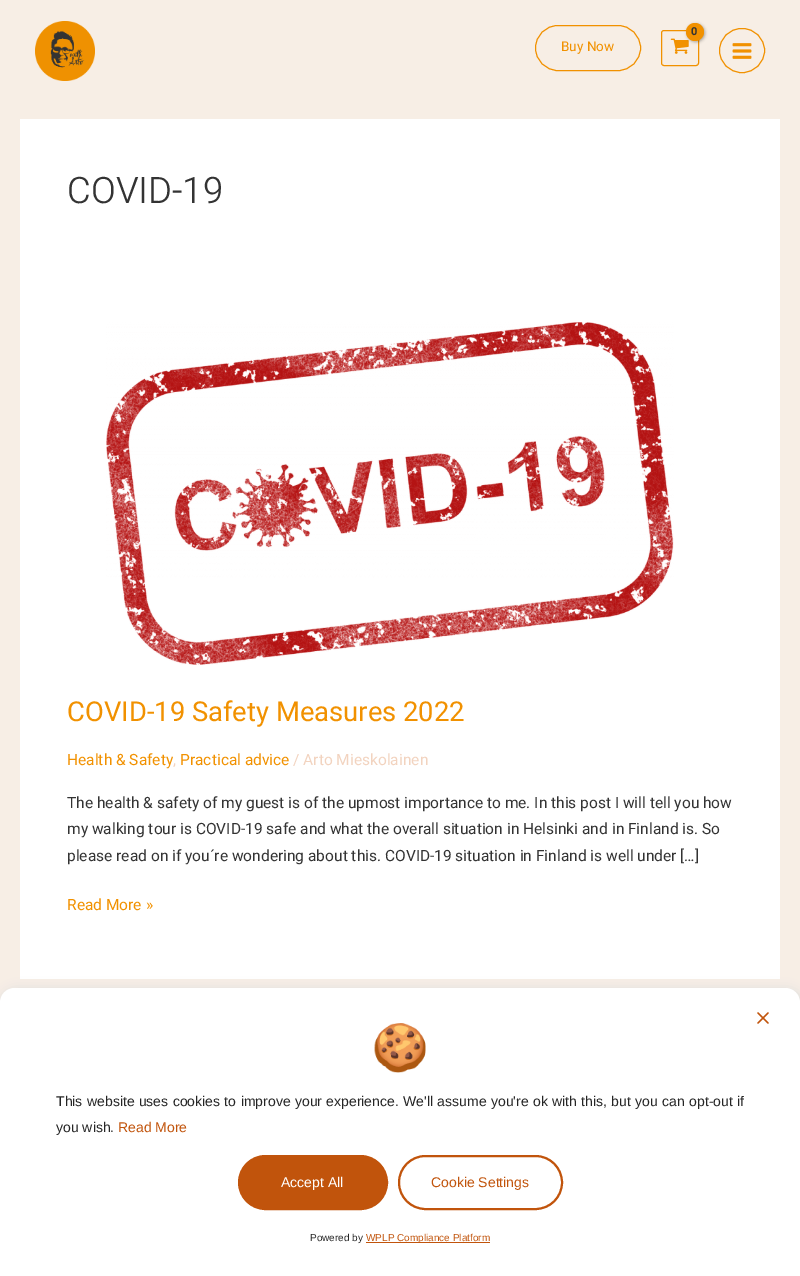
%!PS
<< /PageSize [800 1276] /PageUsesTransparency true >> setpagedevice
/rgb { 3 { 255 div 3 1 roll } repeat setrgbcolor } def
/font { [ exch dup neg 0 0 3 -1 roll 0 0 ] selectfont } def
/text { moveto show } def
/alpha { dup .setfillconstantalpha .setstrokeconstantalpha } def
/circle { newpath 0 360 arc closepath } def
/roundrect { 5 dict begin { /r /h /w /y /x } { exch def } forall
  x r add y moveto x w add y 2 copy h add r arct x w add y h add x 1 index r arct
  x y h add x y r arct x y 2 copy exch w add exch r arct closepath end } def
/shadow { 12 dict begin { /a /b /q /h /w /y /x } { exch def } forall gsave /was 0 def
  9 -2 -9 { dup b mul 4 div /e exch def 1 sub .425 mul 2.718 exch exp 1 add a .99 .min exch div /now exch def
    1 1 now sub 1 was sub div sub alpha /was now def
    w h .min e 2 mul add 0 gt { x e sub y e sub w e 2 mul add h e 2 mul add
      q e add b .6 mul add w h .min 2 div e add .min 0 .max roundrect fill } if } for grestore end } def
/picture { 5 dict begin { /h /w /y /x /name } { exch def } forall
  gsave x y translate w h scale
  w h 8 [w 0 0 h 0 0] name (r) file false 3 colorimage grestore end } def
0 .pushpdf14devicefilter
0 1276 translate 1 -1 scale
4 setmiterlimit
247 238 229 rgb
0 0 800 1276 rectfill
(img_01.rgb) 35 21 60 60 picture
241 145 0 rgb
535.5 25.5 105 45 22.5 roundrect stroke
661.5 30.5 37 35 2.5 roundrect stroke
(img_02.rgb) 670 38 19 16 picture
0 0 0 rgb
687 24 18 18 9 1.5 0.3 shadow
241 145 0 rgb
695 32 9 circle fill
719.5 28.5 45 44 22 roundrect stroke
(img_03.rgb) 732 43 20 16 picture
255 255 255 rgb
20 119 760 860 rectfill
(img_04.rgb) 106 322 568 343 picture
221 221 221 rgb
-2 989 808 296 19 5.5 1 shadow
255 255 255 rgb
15 988 moveto 770 0 rlineto 8.5 0 15 6.5 15 15 rcurveto 0 273 rlineto -800 0 rlineto 0 -273 rlineto 0 -8.5 6.5 -15 15 -15 rcurveto closepath fill
(img_05.rgb) 757 1012 12 12 picture
(img_06.rgb) 374 1023 52 50 picture
193 84 12 rgb
239 1156 148 53 26.5 roundrect gsave fill grestore
2 setlinewidth
stroke
399 1156 163 53 26.5 roundrect stroke
366 1242 124 1 rectfill
/Heebo-Regular 13.5 font
241 145 0 rgb
(Buy Now) 561 51 text
/Heebo-Bold 11 font
51 51 51 rgb
(0) 691 35 text
/Heebo-Light 36.5 font
(COVID-19) 67 203 text
/Heebo-Regular 27.4 font
241 145 0 rgb
(COVID-19 Safety Measures 2022) 67 721 text
/Heebo-Regular 15.5 font
(Health & Safety) 67 765 text
242 211 191 rgb
(,) 173 765 text
241 145 0 rgb
(Practical advice) 180 765 text
242 211 191 rgb
(/ Arto Mieskolainen) 293 765 text
51 51 51 rgb
(The health & safety of my guest is of the upmost importance to me. In this post I will tell you how) 67 808 text
(my walking tour is COVID-19 safe and what the overall situation in Helsinki and in Finland is. So) 67 834 text
(please read on if you´re wondering about this. COVID-19 situation in Finland is well under […]) 67 861 text
241 145 0 rgb
(Read More ») 67 910 text
/LiberationSans-Regular 14 font
37 37 37 rgb
56 1106 moveto 0.5 0 32 (This website uses cookies to improve your experience. We'll assume you're ok with this, but you can opt-out if) widthshow
(you wish.) 56 1132 text
193 84 12 rgb
(Read More) 118 1132 text
255 255 255 rgb
(Accept All) 281 1187 text
193 84 12 rgb
(Cookie Settings) 431 1187 text
/LiberationSans-Regular 10 font
37 37 37 rgb
(Powered by) 310 1241 text
193 84 12 rgb
(WPLP Compliance Platform) 366 1241 text
.poppdf14devicefilter showpage
